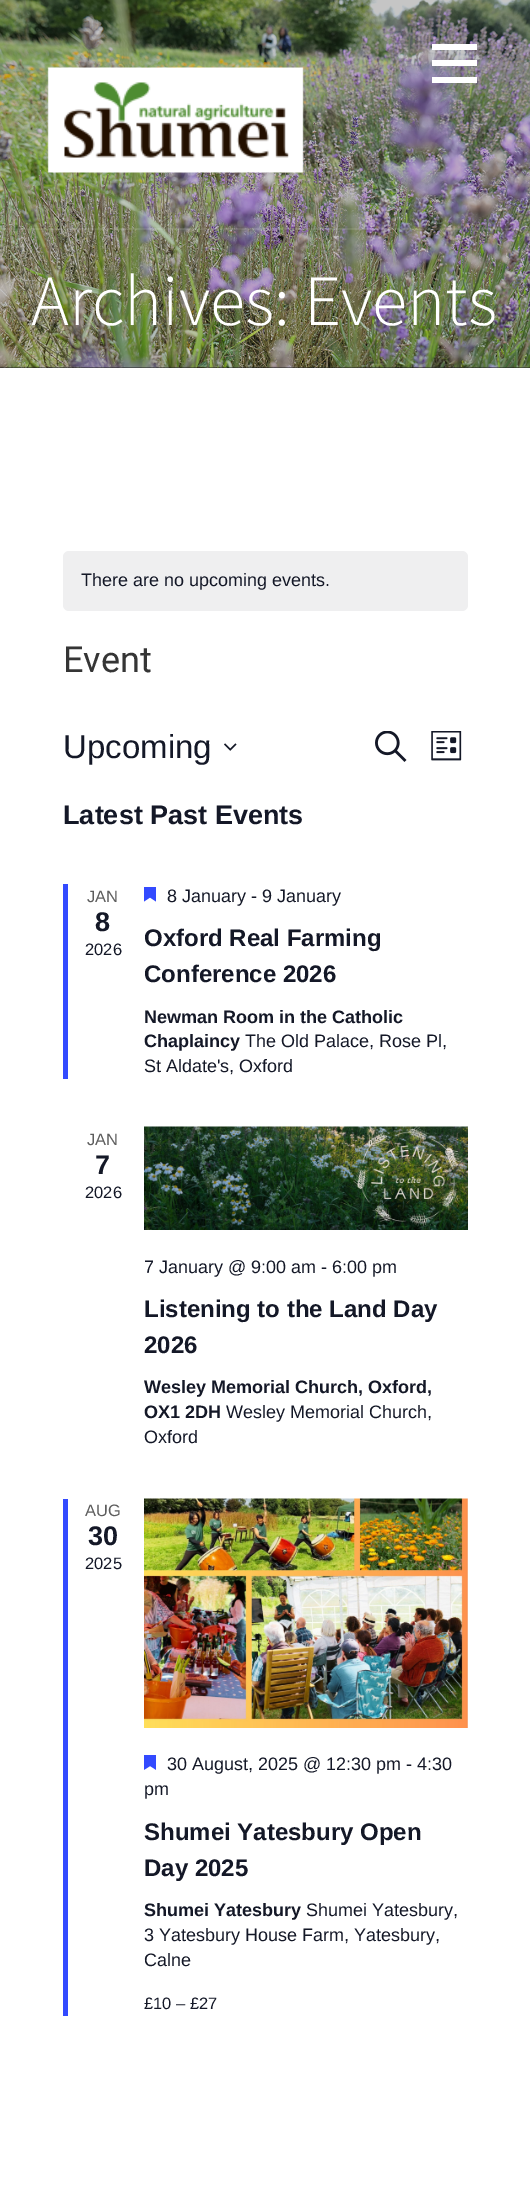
%!PS
<< /PageSize [530 2194] /PageUsesTransparency true >> setpagedevice
/rgb { 3 { 255 div 3 1 roll } repeat setrgbcolor } def
/font { [ exch dup neg 0 0 3 -1 roll 0 0 ] selectfont } def
/text { moveto show } def
/alpha { dup .setfillconstantalpha .setstrokeconstantalpha } def
/roundrect { 5 dict begin { /r /h /w /y /x } { exch def } forall
  x r add y moveto x w add y 2 copy h add r arct x w add y h add x 1 index r arct
  x y h add x y r arct x y 2 copy exch w add exch r arct closepath end } def
/picture { 5 dict begin { /h /w /y /x /name } { exch def } forall
  gsave x y translate w h scale
  w h 8 [w 0 0 h 0 0] name (r) file false 3 colorimage grestore end } def
0 .pushpdf14devicefilter
0 2194 translate 1 -1 scale
4 setmiterlimit
255 255 255 rgb
0 0 530 2194 rectfill
33 33 33 rgb
0 367 530 1 rectfill
(img_01.rgb) 0 0 530 368 picture
0.1 alpha
255 255 255 rgb
0 228 530 2 rectfill
1 alpha
(img_02.rgb) 47 67 257 106 picture
432 44 45 6 rectfill
432 60 45 6 rectfill
432 77 45 6 rectfill
239 239 240 rgb
63 551 405 60 6 roundrect fill
(img_03.rgb) 224 743 13 8 picture
(img_04.rgb) 375 731 32 31 picture
(img_05.rgb) 431 731 31 30 picture
51 74 255 rgb
63 884 5 195 rectfill
gsave
144 887 12 15 rectclip
144 886.5 moveto 12 0 rlineto 0 15 rlineto -6 -4 rlineto -6 4 rlineto closepath eofill
grestore
(img_06.rgb) 144 1126 324 104 picture
63 1499 5 517 rectfill
(img_07.rgb) 144 1498 324 230 picture
(img_08.rgb) 144 1755 12 15 picture
/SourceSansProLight-Light 72 font
255 255 255 rgb
(Archives: Events) 31 325 text
/LiberationSans-Regular 18 font
20 24 39 rgb
(There are no upcoming events.) 81 586 text
/Roboto-Regular 36 font
53 53 53 rgb
(Event) 63 672 text
/LiberationSans-Regular 33 font
20 24 39 rgb
(Upcoming) 63 758 text
/LiberationSans-Bold 27 font
(Latest Past Events) 63 824 text
/LiberationSans-Regular 16.5 font
93 93 93 rgb
(JAN) 87 902 text
/LiberationSans-Bold 27 font
20 24 39 rgb
(8) 95 931 text
/LiberationSans-Regular 16.5 font
(2026) 85 955 text
/LiberationSans-Regular 18 font
(8 January - 9 January) 167 902 text
/LiberationSans-Bold 24 font
(Oxford Real Farming) 144 946 text
(Conference 2026) 144 982 text
/LiberationSans-Bold 18 font
(Newman Room in the Catholic) 144 1023 text
(Chaplaincy) 144 1047 text
/LiberationSans-Regular 18 font
(The Old Palace, Rose Pl,) 245 1047 text
(St Aldate's, Oxford) 144 1072 text
/LiberationSans-Regular 16.5 font
93 93 93 rgb
(JAN) 87 1145 text
/LiberationSans-Bold 27 font
20 24 39 rgb
(7) 95 1174 text
/LiberationSans-Regular 16.5 font
(2026) 85 1198 text
/LiberationSans-Regular 18 font
(7 January @ 9:00 am - 6:00 pm) 144 1273 text
/LiberationSans-Bold 24 font
(Listening to the Land Day) 144 1317 text
(2026) 144 1353 text
/LiberationSans-Bold 18 font
(Wesley Memorial Church, Oxford,) 144 1393 text
(OX1 2DH) 144 1418 text
/LiberationSans-Regular 18 font
(Wesley Memorial Church,) 226 1418 text
(Oxford) 144 1443 text
/LiberationSans-Regular 16.5 font
93 93 93 rgb
(AUG) 85 1516 text
/LiberationSans-Bold 27 font
20 24 39 rgb
(30) 88 1545 text
/LiberationSans-Regular 16.5 font
(2025) 85 1569 text
/LiberationSans-Regular 18 font
(30 August, 2025 @ 12:30 pm - 4:30) 167 1770 text
(pm) 144 1795 text
/LiberationSans-Bold 24 font
(Shumei Yatesbury Open) 144 1840 text
(Day 2025) 144 1876 text
/LiberationSans-Bold 18 font
(Shumei Yatesbury) 144 1916 text
/LiberationSans-Regular 18 font
(Shumei Yatesbury,) 306 1916 text
(3 Yatesbury House Farm, Yatesbury,) 144 1941 text
(Calne) 144 1966 text
/LiberationSans-Regular 16.5 font
(£10 – £27) 144 2009 text
.poppdf14devicefilter showpage
